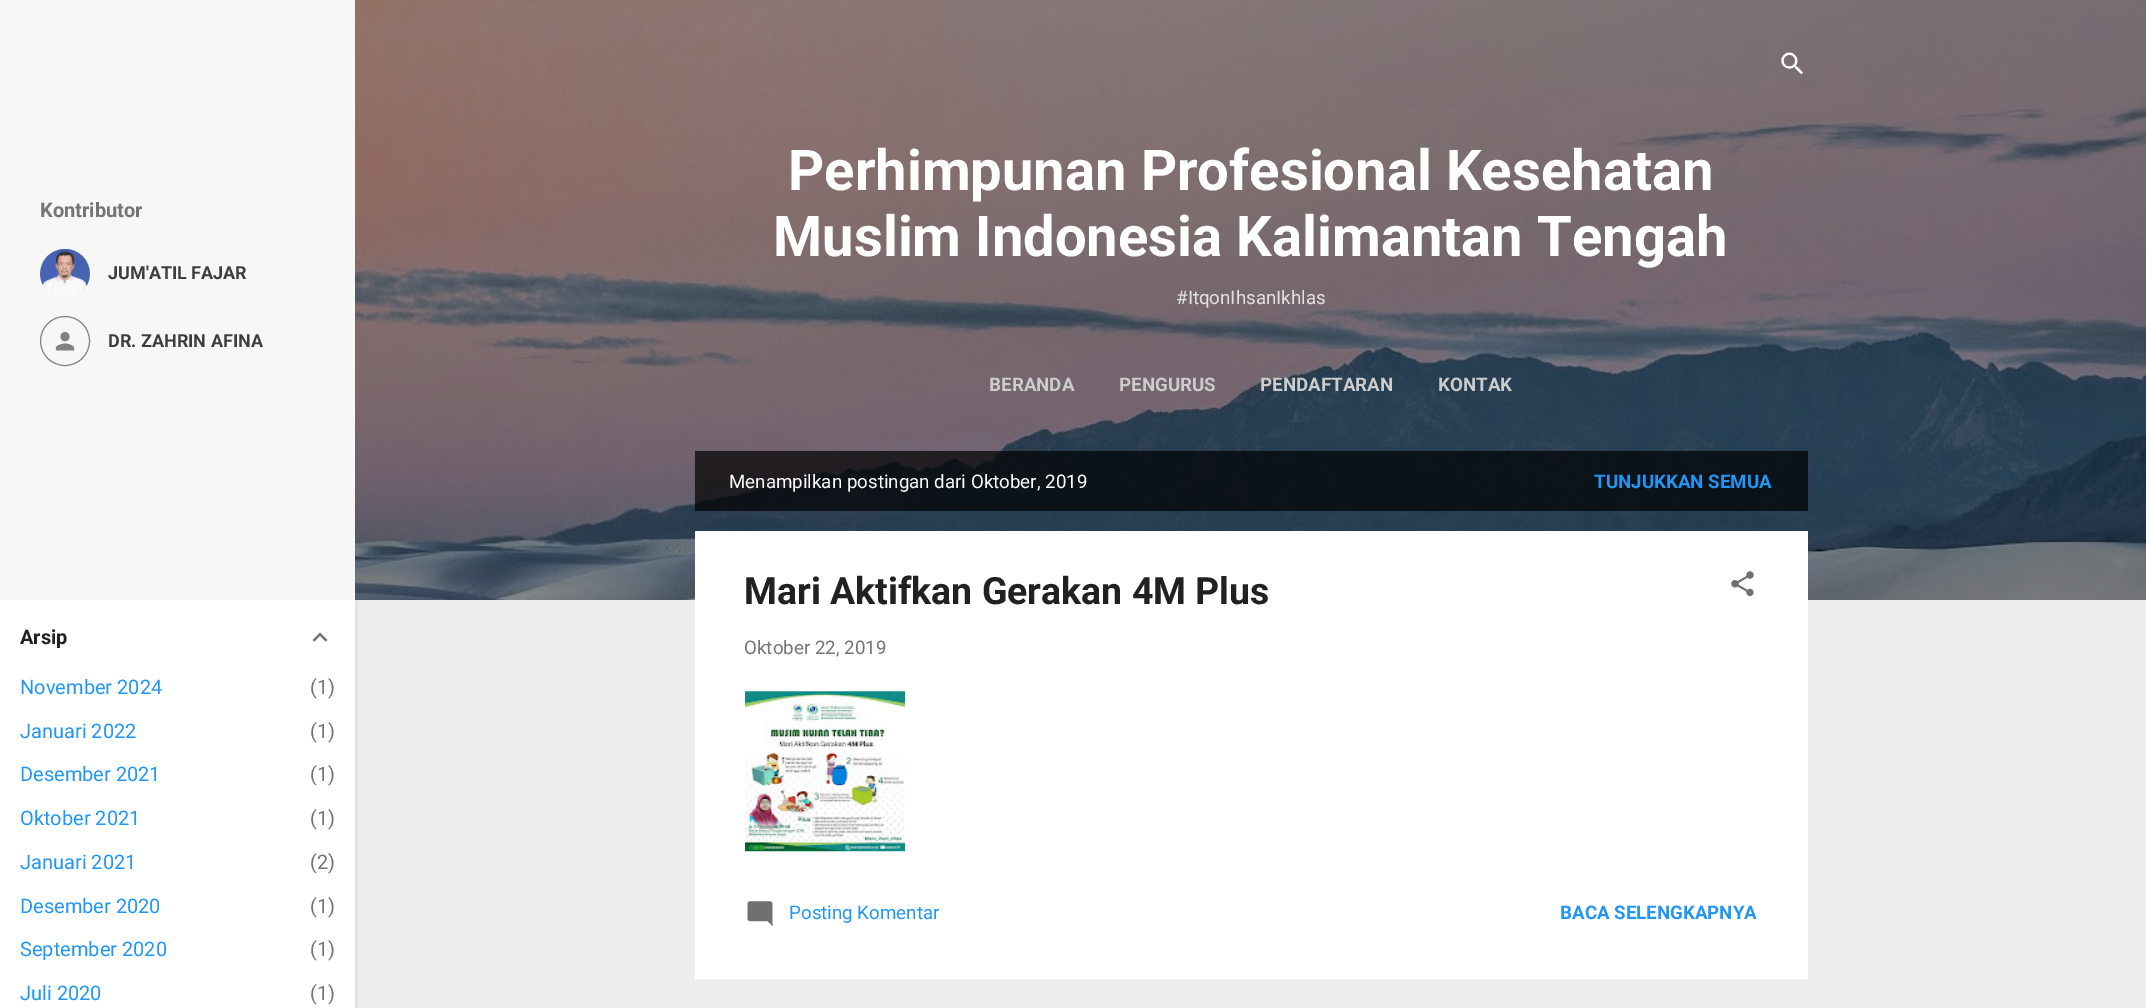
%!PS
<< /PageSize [2146 1008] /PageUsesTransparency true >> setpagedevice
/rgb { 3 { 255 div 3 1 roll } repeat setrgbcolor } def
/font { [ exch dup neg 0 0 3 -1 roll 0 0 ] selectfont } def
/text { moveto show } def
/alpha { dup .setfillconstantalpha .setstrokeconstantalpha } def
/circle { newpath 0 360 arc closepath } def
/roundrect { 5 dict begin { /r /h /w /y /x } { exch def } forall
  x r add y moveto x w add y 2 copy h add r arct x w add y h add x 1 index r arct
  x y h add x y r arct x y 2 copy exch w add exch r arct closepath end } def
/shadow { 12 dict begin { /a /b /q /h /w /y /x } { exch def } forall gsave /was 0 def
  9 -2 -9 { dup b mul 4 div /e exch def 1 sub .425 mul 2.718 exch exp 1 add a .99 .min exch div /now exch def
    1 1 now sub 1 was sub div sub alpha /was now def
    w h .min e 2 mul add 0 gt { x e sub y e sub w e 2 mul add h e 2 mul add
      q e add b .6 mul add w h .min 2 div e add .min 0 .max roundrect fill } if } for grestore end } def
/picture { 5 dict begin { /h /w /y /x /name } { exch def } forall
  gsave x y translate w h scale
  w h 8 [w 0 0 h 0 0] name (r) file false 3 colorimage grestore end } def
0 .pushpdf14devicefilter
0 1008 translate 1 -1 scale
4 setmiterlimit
238 238 238 rgb
0 0 2146 1008 rectfill
(img_04.rgb) 355 0 1791 600 picture
0 0 0 rgb
1 601 355 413 0 2 0.1 shadow
255 255 255 rgb
0 600 355 408 rectfill
247 247 247 rgb
0 0 355 600 rectfill
(img_01.rgb) 40 249 50 49 picture
130 130 130 rgb
65 341 24.5 circle stroke
(img_02.rgb) 55 332 20 19 picture
(img_03.rgb) 312 632 16 10 picture
(img_05.rgb) 1781 52 22 23 picture
0.7 alpha
0 0 0 rgb
695 451 1113 60 rectfill
1 alpha
255 255 255 rgb
695 531 1113 448 rectfill
(img_06.rgb) 1731 571 23 26 picture
(img_07.rgb) 745 691 160 161 picture
(img_08.rgb) 747 901 26 25 picture
/Roboto-Bold 20 font
117 117 117 rgb
(Kontributor) 40 217 text
/Roboto-Bold 18 font
61 61 61 rgb
(JUM'ATIL FAJAR) 108 279 text
(DR. ZAHRIN AFINA) 108 347 text
/Roboto-Bold 20 font
33 33 33 rgb
(Arsip) 20 644 text
/Roboto-Regular 20 font
33 150 243 rgb
(November 2024) 20 694 text
117 117 117 rgb
(\(1\)) 310 694 text
33 150 243 rgb
(Januari 2022) 20 738 text
117 117 117 rgb
(\(1\)) 310 738 text
33 150 243 rgb
(Desember 2021) 20 781 text
117 117 117 rgb
(\(1\)) 310 781 text
33 150 243 rgb
(Oktober 2021) 20 825 text
117 117 117 rgb
(\(1\)) 310 825 text
33 150 243 rgb
(Januari 2021) 20 869 text
117 117 117 rgb
(\(2\)) 310 869 text
33 150 243 rgb
(Desember 2020) 20 913 text
117 117 117 rgb
(\(1\)) 310 913 text
33 150 243 rgb
(September 2020) 20 956 text
117 117 117 rgb
(\(1\)) 310 956 text
33 150 243 rgb
(Juli 2020) 20 1000 text
117 117 117 rgb
(\(1\)) 310 1000 text
/Roboto-Bold 56.25 font
255 255 255 rgb
(Perhimpunan Profesional Kesehatan) 788 190 text
(Muslim Indonesia Kalimantan Tengah) 773 256 text
/Roboto-Regular 18.75 font
228 225 226 rgb
(#ItqonIhsanIkhlas) 1176 304 text
/Roboto-Bold 18.75 font
204 204 204 rgb
(BERANDA) 989 391 text
(PENGURUS) 1119 391 text
(PENDAFTARAN) 1260 391 text
(KONTAK) 1438 391 text
/Roboto-Regular 18.75 font
255 255 255 rgb
(Menampilkan postingan dari Oktober, 2019) 729 488 text
/Roboto-Bold 18.75 font
33 150 243 rgb
(TUNJUKKAN SEMUA) 1594 488 text
/Roboto-Bold 37.5 font
33 33 33 rgb
(Mari Aktifkan Gerakan 4M Plus) 744 604 text
/Roboto-Regular 18.75 font
117 117 117 rgb
(Oktober 22, 2019) 744 654 text
33 150 243 rgb
(Posting Komentar) 789 919 text
/Roboto-Bold 18.75 font
(BACA SELENGKAPNYA) 1560 919 text
.poppdf14devicefilter showpage
